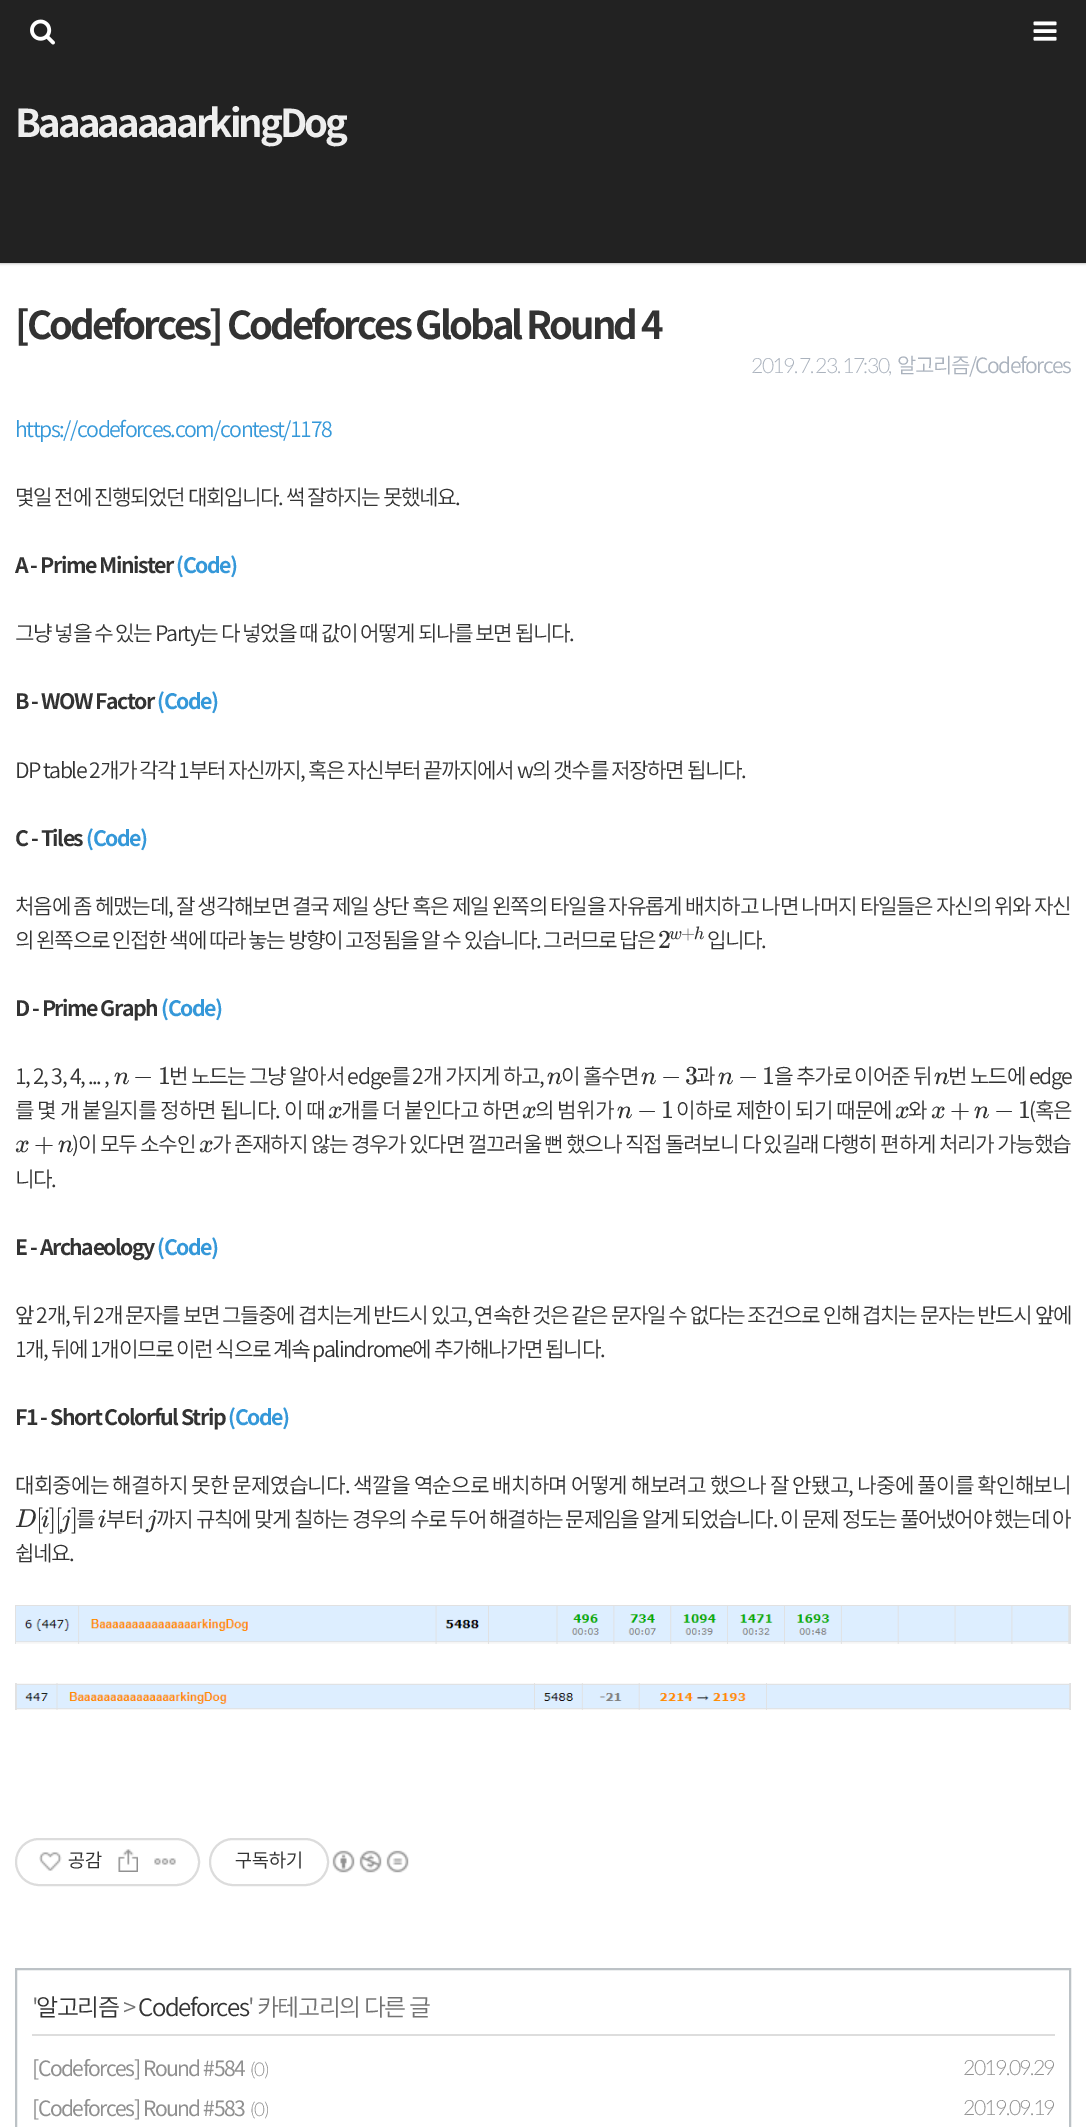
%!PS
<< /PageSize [1086 2127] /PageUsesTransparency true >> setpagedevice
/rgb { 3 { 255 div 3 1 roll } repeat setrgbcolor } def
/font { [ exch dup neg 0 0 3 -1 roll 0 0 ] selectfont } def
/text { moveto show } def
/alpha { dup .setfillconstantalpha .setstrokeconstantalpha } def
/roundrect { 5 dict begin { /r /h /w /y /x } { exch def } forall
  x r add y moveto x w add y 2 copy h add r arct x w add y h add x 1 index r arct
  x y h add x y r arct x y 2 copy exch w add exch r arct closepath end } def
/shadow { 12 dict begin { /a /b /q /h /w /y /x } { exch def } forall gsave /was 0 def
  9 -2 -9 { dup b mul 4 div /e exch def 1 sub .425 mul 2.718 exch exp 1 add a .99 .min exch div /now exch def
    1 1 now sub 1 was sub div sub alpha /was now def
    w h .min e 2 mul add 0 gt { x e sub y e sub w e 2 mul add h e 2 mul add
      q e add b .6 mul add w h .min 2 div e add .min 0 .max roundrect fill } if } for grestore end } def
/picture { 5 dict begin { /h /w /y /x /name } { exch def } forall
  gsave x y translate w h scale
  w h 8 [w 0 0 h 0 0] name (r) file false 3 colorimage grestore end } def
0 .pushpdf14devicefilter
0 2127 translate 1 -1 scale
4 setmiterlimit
255 255 255 rgb
0 0 1086 2127 rectfill
55 55 55 rgb
0 0 1086 263 0 1.5 0.5 shadow
34 34 34 rgb
0 0 1086 263 rectfill
(img_01.rgb) 30 19 25 26 picture
(img_02.rgb) 1033 21 24 20 picture
(img_03.rgb) 15 1605 1056 39 picture
(img_04.rgb) 15 1683 1056 27 picture
220 220 220 rgb
2 setlinewidth
16 1839 183 46 23 roundrect stroke
(img_05.rgb) 39 1852 23 19 picture
(img_06.rgb) 118 1849 20 23 picture
(img_07.rgb) 154 1858 22 7 picture
210 1839 118 46 23 roundrect stroke
(img_08.rgb) 332 1850 23 23 picture
(img_09.rgb) 359 1850 23 23 picture
(img_10.rgb) 386 1850 23 23 picture
188 194 198 rgb
16 1969 1054 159 rectstroke
221 221 221 rgb
32 2034 1023 2 rectfill
/NotoSansCJKKR-Bold 38.4 font
238 238 238 rgb
15 137 moveto -3 0 (BaaaaaaaarkingDog) ashow
51 51 51 rgb
15 339 moveto -3 0 ([Codeforces] Codeforces Global Round 4) ashow
/Lato-Light 21.1 font
170 178 189 rgb
751 373 moveto -1.5 0 (2019. 7. 23. 17:30,) ashow
/NotoSansCJKKR-Light 21.1 font
897 373 moveto -1.5 0 (알고리즘/Codeforces) ashow
/NotoSansCJKKR-Light 21.3 font
53 152 217 rgb
15 437 moveto -1.5 0 (https://codeforces.com/contest/1178) ashow
51 51 51 rgb
15 505 moveto -1.5 0 (몇일 전에 진행되었던 대회입니다. 썩 잘하지는 못했네요.) ashow
/NotoSansCJKKR-Bold 21.3 font
15 573 moveto -1.5 0 (A - Prime Minister) ashow
53 152 217 rgb
176 573 moveto -1.5 0 (\(Code\)) ashow
/NotoSansCJKKR-Light 21.3 font
51 51 51 rgb
15 641 moveto -1.5 0 (그냥 넣을 수 있는 Party는 다 넣었을 때 값이 어떻게 되나를 보면 됩니다.) ashow
/NotoSansCJKKR-Bold 21.3 font
15 709 moveto -1.5 0 (B - WOW Factor) ashow
53 152 217 rgb
157 709 moveto -1.5 0 (\(Code\)) ashow
/NotoSansCJKKR-Light 21.3 font
51 51 51 rgb
15 778 moveto -1.5 0 (DP table 2개가 각각 1부터 자신까지, 혹은 자신부터 끝까지에서 w의 갯수를 저장하면 됩니다.) ashow
/NotoSansCJKKR-Bold 21.3 font
15 846 moveto -1.5 0 (C - Tiles) ashow
53 152 217 rgb
86 846 moveto -1.5 0 (\(Code\)) ashow
/NotoSansCJKKR-Light 21.3 font
51 51 51 rgb
15 914 moveto -1.33 0 (처음에 좀 헤맸는데, 잘 생각해보면 결국 제일 상단 혹은 제일 왼쪽의 타일을 자유롭게 배치하고 나면 나머지 타일들은 자신의 위와 자신) ashow
15 948 moveto -1.5 0 (의 왼쪽으로 인접한 색에 따라 놓는 방향이 고정됨을 알 수 있습니다. 그러므로 답은) ashow
/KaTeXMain-Regular 26 font
658 948 moveto -1.5 0 (2) ashow
/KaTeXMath-Italic 18 font
669 939 moveto -1.5 0 (w) ashow
/KaTeXMain-Regular 18 font
681 939 moveto -1.5 0 (+) ashow
/KaTeXMath-Italic 18 font
694 939 moveto -1.5 0 (h) ashow
/NotoSansCJKKR-Light 21.3 font
707 948 moveto -1.5 0 (입니다.) ashow
/NotoSansCJKKR-Bold 21.3 font
15 1016 moveto -1.5 0 (D - Prime Graph) ashow
53 152 217 rgb
161 1016 moveto -1.5 0 (\(Code\)) ashow
/NotoSansCJKKR-Light 21.3 font
51 51 51 rgb
15 1084 moveto 0.5 0 32 -1.5 0 (1, 2, 3, 4, ... ,) awidthshow
/KaTeXMath-Italic 26 font
114 1084 moveto -1.5 0 (n) ashow
/KaTeXMain-Regular 26 font
133 1084 moveto -1.5 0 (−) ashow
158 1084 moveto -1.5 0 (1) ashow
/NotoSansCJKKR-Light 21.3 font
169 1084 moveto -1.3 0 (번 노드는 그냥 알아서 edge를 2개 가지게 하고,) ashow
/KaTeXMath-Italic 26 font
547 1084 moveto -1.5 0 (n) ashow
/NotoSansCJKKR-Light 21.3 font
561 1084 moveto -1.25 0 (이 홀수면) ashow
/KaTeXMath-Italic 26 font
641 1084 moveto -1.5 0 (n) ashow
/KaTeXMain-Regular 26 font
661 1084 moveto -1.5 0 (−) ashow
685 1084 moveto -1.5 0 (3) ashow
/NotoSansCJKKR-Light 21.3 font
696 1084 moveto -1.5 0 (과) ashow
/KaTeXMath-Italic 26 font
718 1084 moveto -1.5 0 (n) ashow
/KaTeXMain-Regular 26 font
738 1084 moveto -1.5 0 (−) ashow
762 1084 moveto -1.5 0 (1) ashow
/NotoSansCJKKR-Light 21.3 font
774 1084 moveto -1.25 0 (을 추가로 이어준 뒤) ashow
/KaTeXMath-Italic 26 font
934 1084 moveto -1.5 0 (n) ashow
/NotoSansCJKKR-Light 21.3 font
948 1084 moveto 1 0 32 -1.5 0 (번 노드에 edge) awidthshow
15 1118 moveto -1 0 (를 몇 개 붙일지를 정하면 됩니다. 이 때) ashow
/KaTeXMath-Italic 26 font
328 1118 moveto -1.5 0 (x) ashow
/NotoSansCJKKR-Light 21.3 font
341 1118 moveto -1 0 (개를 더 붙인다고 하면) ashow
/KaTeXMath-Italic 26 font
522 1118 moveto -1.5 0 (x) ashow
/NotoSansCJKKR-Light 21.3 font
535 1118 moveto -1 0 (의 범위가) ashow
/KaTeXMath-Italic 26 font
617 1118 moveto -1.5 0 (n) ashow
/KaTeXMain-Regular 26 font
637 1118 moveto -1.5 0 (−) ashow
661 1118 moveto -1.5 0 (1) ashow
/NotoSansCJKKR-Light 21.3 font
676 1118 moveto -1 0 (이하로 제한이 되기 때문에) ashow
908 1118 moveto -1.5 0 (와) ashow
/KaTeXMath-Italic 26 font
895 1118 moveto -1.5 0 (x) ashow
931 1118 moveto -1.5 0 (x) ashow
/KaTeXMain-Regular 26 font
950 1118 moveto -1.5 0 (+) ashow
/KaTeXMath-Italic 26 font
974 1118 moveto -1.5 0 (n) ashow
/KaTeXMain-Regular 26 font
994 1118 moveto -1.5 0 (−) ashow
1018 1118 moveto -1.5 0 (1) ashow
/NotoSansCJKKR-Light 21.3 font
1029 1118 moveto -1.5 0 (\(혹은) ashow
/KaTeXMath-Italic 26 font
15 1152 moveto -1.5 0 (x) ashow
/KaTeXMain-Regular 26 font
34 1152 moveto -1.5 0 (+) ashow
/NotoSansCJKKR-Light 21.3 font
72 1152 moveto -1.25 0 (\)이 모두 소수인) ashow
/KaTeXMath-Italic 26 font
58 1152 moveto -1.5 0 (n) ashow
199 1152 moveto -1.5 0 (x) ashow
/NotoSansCJKKR-Light 21.3 font
212 1152 moveto -1.27 0 (가 존재하지 않는 경우가 있다면 껄끄러울 뻔 했으나 직접 돌려보니 다 있길래 다행히 편하게 처리가 가능했습) ashow
15 1187 moveto -1.5 0 (니다.) ashow
/NotoSansCJKKR-Bold 21.3 font
15 1255 moveto -1.5 0 (E - Archaeology) ashow
53 152 217 rgb
157 1255 moveto -1.5 0 (\(Code\)) ashow
/NotoSansCJKKR-Light 21.3 font
51 51 51 rgb
15 1323 moveto -1.5 0 (앞 2개, 뒤 2개 문자를 보면 그들중에 겹치는게 반드시 있고, 연속한 것은 같은 문자일 수 없다는 조건으로 인해 겹치는 문자는 반드시 앞에) ashow
15 1357 moveto -1.5 0 (1개, 뒤에 1개이므로 이런 식으로 계속 palindrome에 추가해나가면 됩니다.) ashow
/NotoSansCJKKR-Bold 21.3 font
15 1425 moveto -1.5 0 (F1 - Short Colorful Strip) ashow
53 152 217 rgb
228 1425 moveto -1.5 0 (\(Code\)) ashow
/NotoSansCJKKR-Light 21.3 font
51 51 51 rgb
15 1493 moveto -0.88 0 (대회중에는 해결하지 못한 문제였습니다. 색깔을 역순으로 배치하며 어떻게 해보려고 했으나 잘 안됐고, 나중에 풀이를 확인해보니) ashow
/KaTeXMath-Italic 26 font
15 1527 moveto -1.5 0 (D) ashow
/KaTeXMain-Regular 26 font
36 1527 moveto -1.5 0 ([) ashow
/KaTeXMath-Italic 26 font
41 1527 moveto -1.5 0 (i) ashow
/KaTeXMain-Regular 26 font
49 1527 moveto -1.5 0 (][) ashow
/KaTeXMath-Italic 26 font
60 1527 moveto -1.5 0 (j) ashow
/KaTeXMain-Regular 26 font
71 1527 moveto -1.5 0 (]) ashow
/NotoSansCJKKR-Light 21.3 font
76 1527 moveto -1.5 0 (를) ashow
/KaTeXMath-Italic 26 font
98 1527 moveto -1.5 0 (i) ashow
/NotoSansCJKKR-Light 21.3 font
106 1527 moveto -1 0 (부터) ashow
/KaTeXMath-Italic 26 font
146 1527 moveto -1.5 0 (j) ashow
/NotoSansCJKKR-Light 21.3 font
156 1527 moveto -1.38 0 (까지 규칙에 맞게 칠하는 경우의 수로 두어 해결하는 문제임을 알게 되었습니다. 이 문제 정도는 풀어냈어야 했는데 아) ashow
15 1561 moveto -1.5 0 (쉽네요.) ashow
/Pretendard-Regular 19.5 font
(공감) 68 1867 text
(구독하기) 235 1867 text
/NotoSansCJKKR-Light 24 font
115 115 115 rgb
32 2016 moveto -1.5 0 (') ashow
51 51 51 rgb
36 2016 moveto -1.5 0 (알고리즘) ashow
115 115 115 rgb
123 2016 moveto -1.5 0 (>) ashow
51 51 51 rgb
138 2016 moveto -1.5 0 (Codeforces) ashow
115 115 115 rgb
248 2016 moveto -1.5 0 (' 카테고리의 다른 글) ashow
/NotoSansCJKKR-Regular 21.1 font
144 144 144 rgb
32 2076 moveto -1.5 0 ([Codeforces] Round #584) ashow
/Lato-Light 19 font
250 2076 moveto -1.5 0 (\(0\)) ashow
/Lato-Light 21.1 font
963 2075 moveto -1.5 0 (2019.09.29) ashow
/NotoSansCJKKR-Regular 21.1 font
32 2116 moveto -1.5 0 ([Codeforces] Round #583) ashow
/Lato-Light 19 font
250 2116 moveto -1.5 0 (\(0\)) ashow
/Lato-Light 21.1 font
963 2115 moveto -1.5 0 (2019.09.19) ashow
.poppdf14devicefilter showpage
